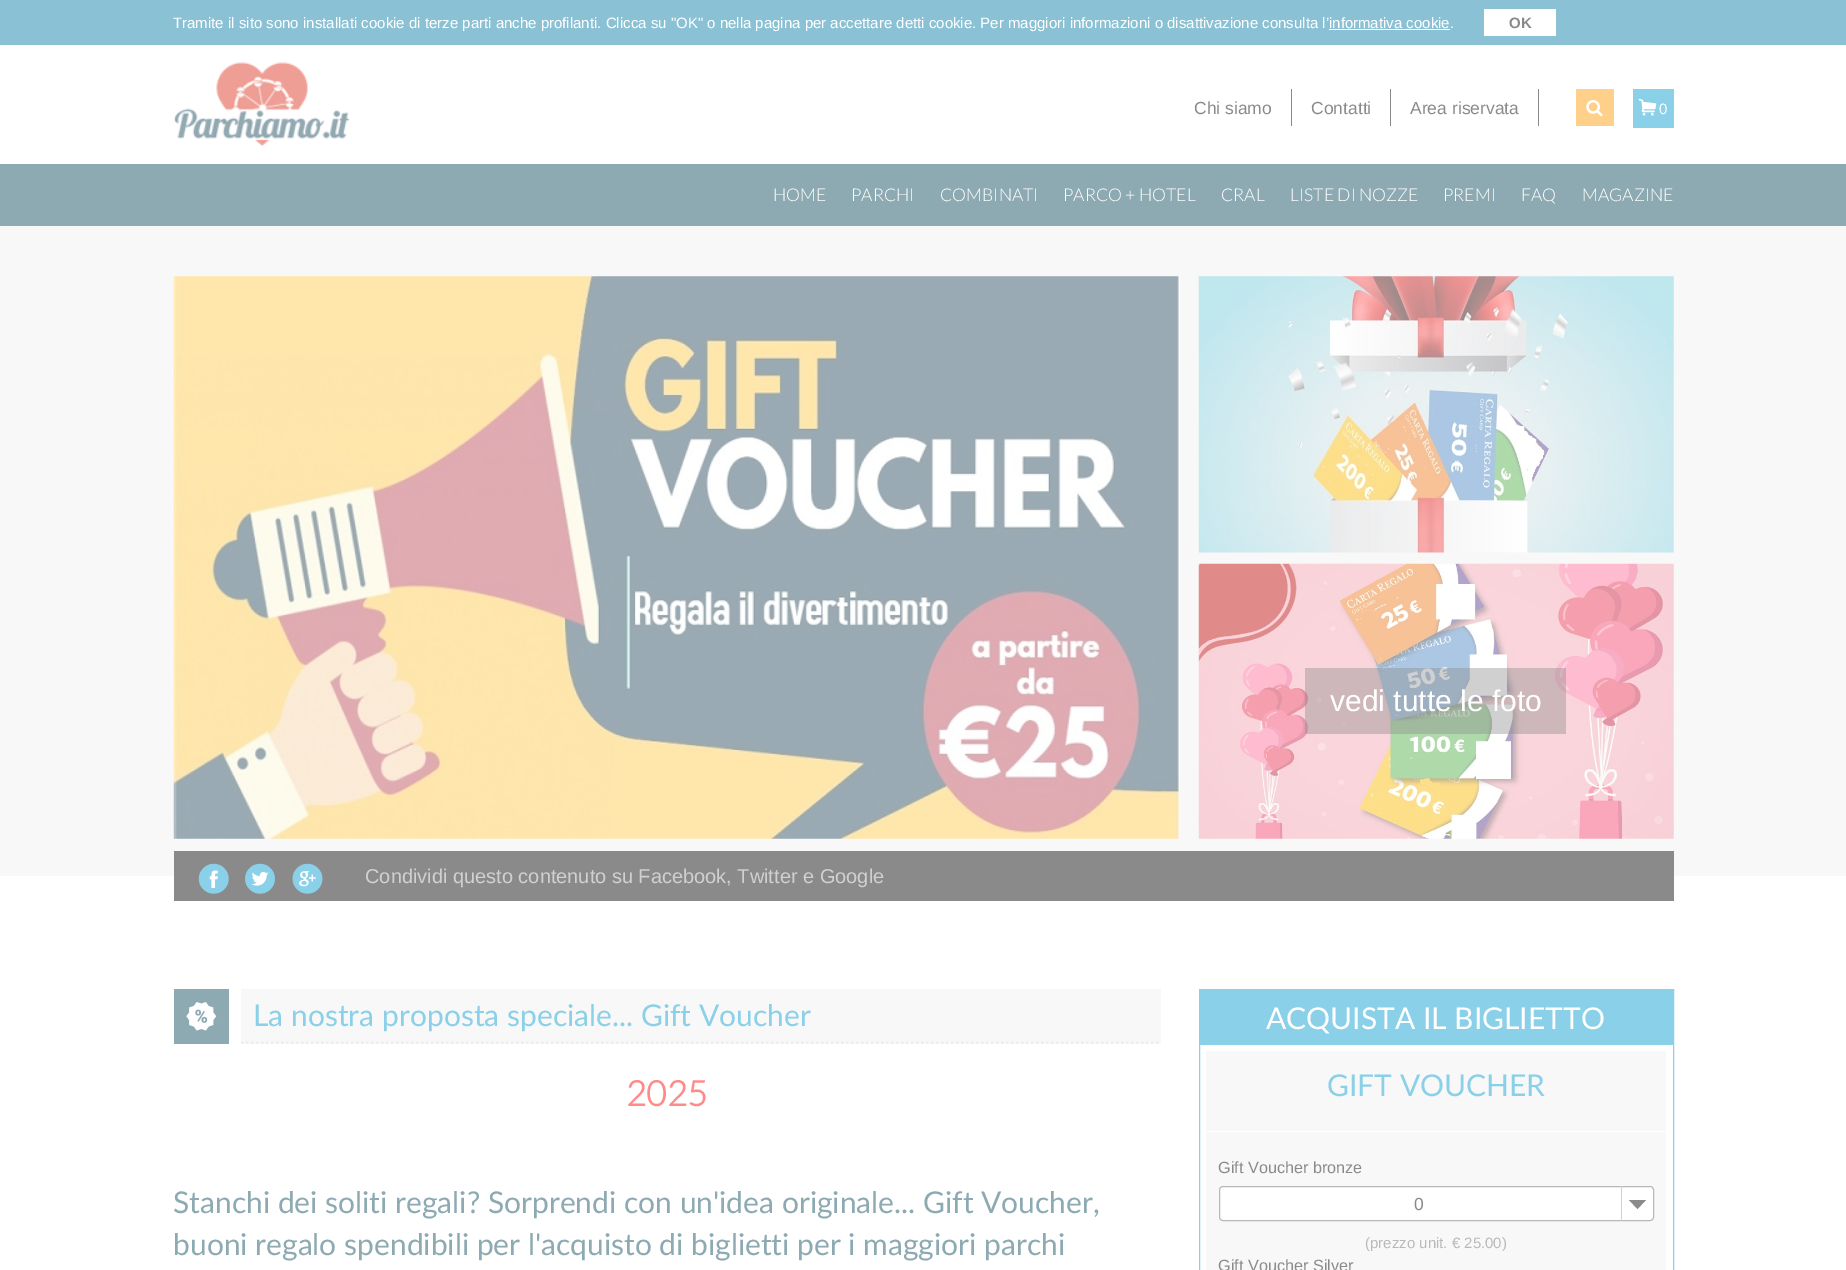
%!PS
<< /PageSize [1846 1270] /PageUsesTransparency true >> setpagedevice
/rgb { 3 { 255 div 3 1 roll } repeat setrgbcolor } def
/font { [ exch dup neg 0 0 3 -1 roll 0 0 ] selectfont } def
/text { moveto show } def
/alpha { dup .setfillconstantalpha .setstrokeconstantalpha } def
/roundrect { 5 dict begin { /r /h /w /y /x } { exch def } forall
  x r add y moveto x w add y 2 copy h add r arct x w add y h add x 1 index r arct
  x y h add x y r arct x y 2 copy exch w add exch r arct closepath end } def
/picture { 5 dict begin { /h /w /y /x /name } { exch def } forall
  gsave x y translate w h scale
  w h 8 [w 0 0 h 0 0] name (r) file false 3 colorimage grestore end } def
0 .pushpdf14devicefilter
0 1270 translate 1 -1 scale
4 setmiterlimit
255 255 255 rgb
0 0 1846 1270 rectfill
139 193 212 rgb
0 0 1846 45 rectfill
255 255 255 rgb
1484 9 72 27 1 roundrect fill
1329 29 121 1 rectfill
(img_01.rgb) 173 62 177 85 picture
138 138 138 rgb
1291 89 1 37 rectfill
1390 89 1 37 rectfill
1538 89 1 37 rectfill
255 208 138 rgb
1576 89 38 37 rectfill
(img_02.rgb) 1586 100 17 17 picture
138 208 232 rgb
1633 89 41 39 rectfill
(img_03.rgb) 1638 98 19 18 picture
141 169 178 rgb
0 164 1846 62 rectfill
248 248 248 rgb
0 226 1846 650 rectfill
(img_04.rgb) 173 276 1007 563 picture
(img_05.rgb) 1198 276 476 277 picture
(img_06.rgb) 1198 563 476 276 picture
0.4 alpha
138 138 138 rgb
1305 668 261 66 rectfill
1 alpha
174 851 1500 50 rectfill
255 255 255 rgb
204 868 20 23 10 roundrect fill
(img_07.rgb) 198 863 31 31 picture
250 868 21 23 10 roundrect fill
(img_08.rgb) 245 863 30 31 picture
298 868 21 23 10 roundrect fill
(img_09.rgb) 292 863 31 31 picture
141 169 178 rgb
174 989 55 55 rectfill
(img_10.rgb) 186 1002 31 29 picture
248 248 248 rgb
241 989 920 55 rectfill
238 238 238 rgb
2.5 setlinewidth
[2.5 2.5] 0 setdash
241 1042.5 moveto 920 0 rlineto stroke
138 208 232 rgb
1 setlinewidth
[] 0 setdash
1199.5 989.5 474 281 rectstroke
1200 990 473 55 rectfill
248 248 248 rgb
1206 1051 460 219 rectfill
255 255 255 rgb
1206 1131 460 1 rectfill
1219.5 1186.5 434 34 3.5 roundrect gsave fill grestore
185 185 185 rgb
stroke
208 208 208 rgb
1621 1186 1 35 rectfill
138 138 138 rgb
1629 1200 moveto 17 0 rlineto -8.5 9 rlineto closepath fill
/LiberationSans-Regular 15 font
255 255 255 rgb
(Tramite il sito sono installati cookie di terze parti anche profilanti. Clicca su "OK" o nella pagina per accettare detti cookie. Per maggiori informazioni o disattivazione consulta l’informativa cookie.) 173 28 text
/LiberationSans-Bold 15 font
138 138 138 rgb
(OK) 1509 28 text
/LiberationSans-Regular 17.5 font
(Chi siamo) 1194 114 text
(Contatti) 1311 114 text
(Area riservata) 1410 114 text
/LiberationSans-Regular 15 font
255 255 255 rgb
(0) 1659 114 text
/Lato-Light 17.5 font
(HOME) 773 201 text
(PARCHI) 851 201 text
(COMBINATI) 940 201 text
(PARCO + HOTEL) 1063 201 text
(CRAL) 1221 201 text
(LISTE DI NOZZE) 1290 201 text
(PREMI) 1443 201 text
(FAQ) 1521 201 text
(MAGAZINE) 1582 201 text
/LiberationSans-Regular 30 font
(vedi tutte le foto) 1330 711 text
/LiberationSans-Regular 20 font
208 208 208 rgb
(Condividi questo contenuto su Facebook, Twitter e Google) 365 883 text
/Lato-Regular 30 font
138 208 232 rgb
(La nostra proposta speciale... Gift Voucher) 253 1026 text
/Lato-Bold 35 font
255 138 138 rgb
(2025) 626 1106 text
/Lato-Regular 30 font
141 169 178 rgb
(Stanchi dei soliti regali? Sorprendi con un'idea originale... Gift Voucher,) 173 1213 text
(buoni regalo spendibili per l'acquisto di biglietti per i maggiori parchi) 173 1255 text
255 255 255 rgb
(ACQUISTA IL BIGLIETTO) 1266 1029 text
138 208 232 rgb
(GIFT VOUCHER) 1327 1096 text
/LiberationSans-Regular 16.25 font
138 138 138 rgb
(Gift Voucher bronze) 1218 1173 text
/LiberationSans-Regular 17.5 font
(0) 1414 1210 text
/LiberationSans-Regular 15 font
185 185 185 rgb
(\(prezzo unit. € 25.00\)) 1365 1248 text
/LiberationSans-Regular 16.25 font
138 138 138 rgb
(Gift Voucher Silver) 1218 1271 text
.poppdf14devicefilter showpage
